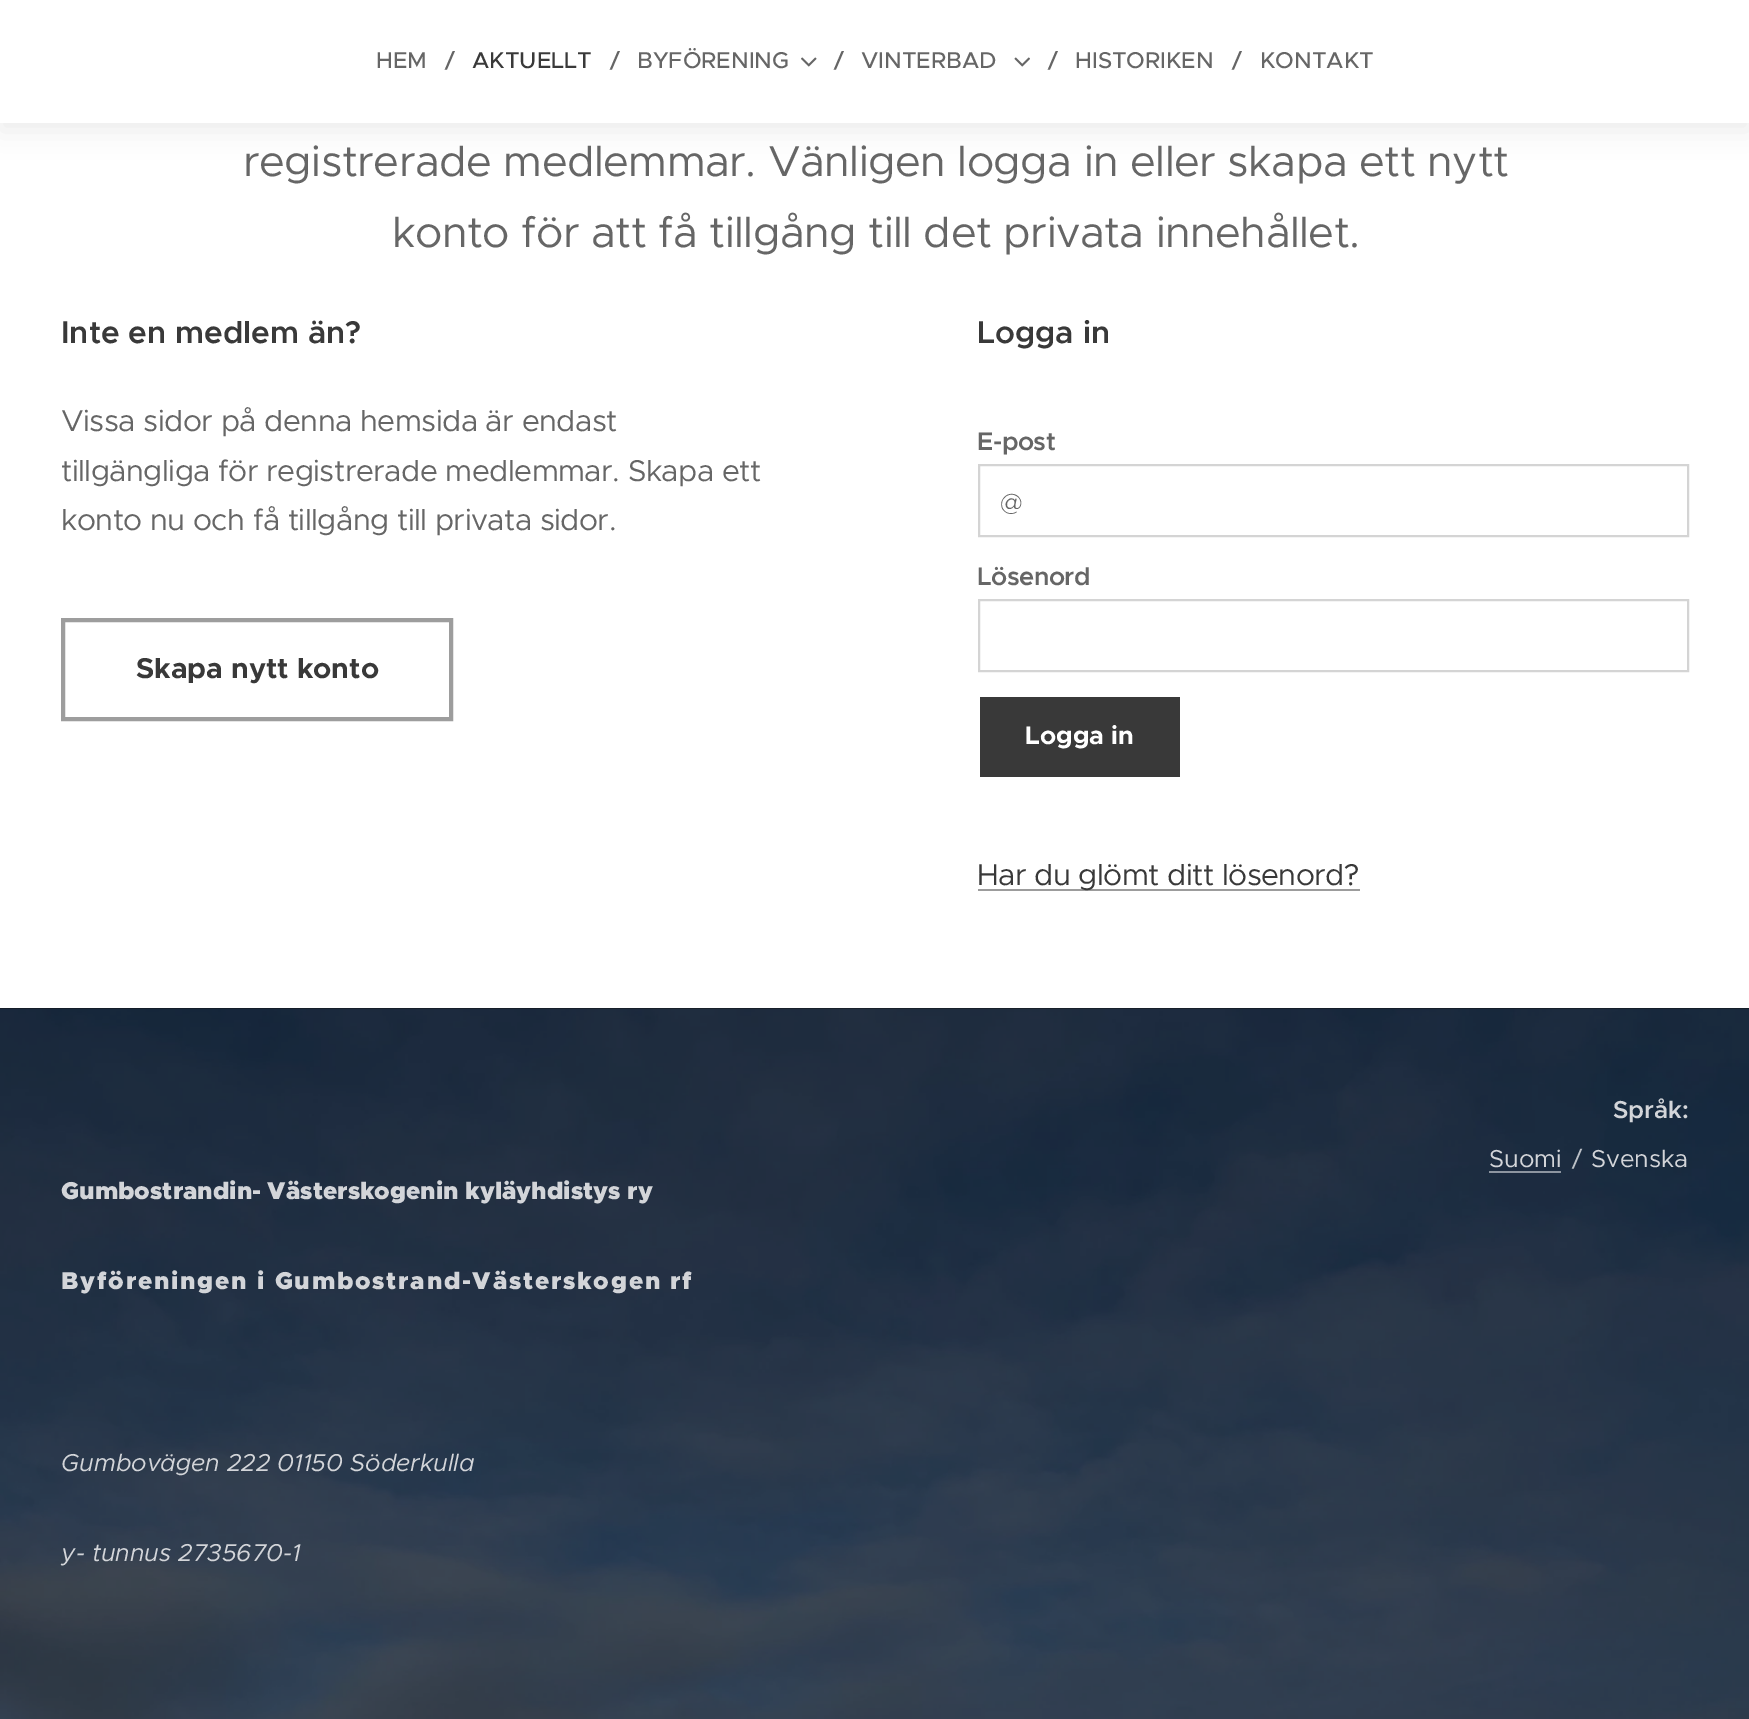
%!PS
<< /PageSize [1749 1719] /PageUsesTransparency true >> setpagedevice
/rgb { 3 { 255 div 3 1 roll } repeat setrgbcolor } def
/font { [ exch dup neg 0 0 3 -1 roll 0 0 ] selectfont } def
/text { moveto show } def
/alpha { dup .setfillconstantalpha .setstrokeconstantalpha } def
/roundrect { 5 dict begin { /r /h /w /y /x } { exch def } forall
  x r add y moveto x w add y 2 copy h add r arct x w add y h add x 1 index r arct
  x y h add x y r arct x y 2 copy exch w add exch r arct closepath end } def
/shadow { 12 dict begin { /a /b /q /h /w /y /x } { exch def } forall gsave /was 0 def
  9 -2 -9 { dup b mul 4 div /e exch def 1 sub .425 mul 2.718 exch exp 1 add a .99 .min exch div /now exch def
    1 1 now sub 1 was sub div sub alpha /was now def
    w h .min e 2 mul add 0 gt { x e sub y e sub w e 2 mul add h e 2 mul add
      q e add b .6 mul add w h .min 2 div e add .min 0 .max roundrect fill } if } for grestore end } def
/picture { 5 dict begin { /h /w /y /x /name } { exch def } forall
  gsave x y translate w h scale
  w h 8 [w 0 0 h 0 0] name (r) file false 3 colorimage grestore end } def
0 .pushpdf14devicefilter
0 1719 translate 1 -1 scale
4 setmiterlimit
255 255 255 rgb
0 0 1749 1719 rectfill
0 0 0 rgb
0 9 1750 122 0 13 0.07 shadow
255 255 255 rgb
0 0 1749 123 rectfill
(img_01.rgb) 801 57 16 10 picture
(img_02.rgb) 1014 57 16 10 picture
157 157 157 rgb
4 setlinewidth
63 620 388 99 rectstroke
212 212 212 rgb
2 setlinewidth
979 465 709 71 rectstroke
979 600 709 71 rectstroke
57 57 57 rgb
980 697 200 80 rectfill
156 156 156 rgb
978 889 382 2 rectfill
16 16 16 rgb
0 1008 1749 1 rectfill
(img_03.rgb) 0 1008 1749 711 picture
141 149 160 rgb
1489 1171 72 2 rectfill
/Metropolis-Medium 23 font
102 102 102 rgb
(HEM) 376 68 text
(/) 445 68 text
57 57 57 rgb
(AKTUELLT) 472 68 text
102 102 102 rgb
(/) 610 68 text
(BYFÖRENING) 637 68 text
(/) 834 68 text
(VINTERBAD) 861 68 text
(/) 1048 68 text
(HISTORIKEN) 1075 68 text
(/) 1232 68 text
(KONTAKT) 1260 68 text
/Metropolis-Regular 43.25 font
243 176 moveto -0.5 0 (registrerade medlemmar. Vänligen logga in eller skapa ett nytt) ashow
392 247 moveto -0.5 0 (konto för att få tillgång till det privata innehållet.) ashow
/Metropolis-SemiBold 31.5 font
57 57 57 rgb
(Inte en medlem än?) 61 343 text
/Metropolis-Regular 30.1 font
102 102 102 rgb
61 431 moveto -0.5 0 (Vissa sidor på denna hemsida är endast) ashow
61 481 moveto -0.5 0 (tillgängliga för registrerade medlemmar. Skapa ett) ashow
61 530 moveto -0.5 0 (konto nu och få tillgång till privata sidor.) ashow
/Metropolis-Bold 28.75 font
57 57 57 rgb
(Skapa nytt konto) 136 678 text
/Metropolis-SemiBold 31.5 font
(Logga in) 977 343 text
/Metropolis-SemiBold 25.5 font
102 102 102 rgb
977 450 moveto -0.5 0 (E-post) ashow
/Metropolis-Light 25.5 font
(@) 1000 511 text
/Metropolis-SemiBold 25.5 font
977 585 moveto -0.5 0 (Lösenord) ashow
/Metropolis-Bold 25.5 font
255 255 255 rgb
(Logga in) 1025 744 text
/Metropolis-Regular 30.1 font
57 57 57 rgb
977 885 moveto -0.5 0 (Har du glömt ditt lösenord?) ashow
/Metropolis-SemiBold 24.5 font
211 213 217 rgb
(Språk:) 1613 1118 text
/Metropolis-Regular 24.5 font
(Suomi) 1489 1167 text
187 192 198 rgb
(/) 1572 1167 text
211 213 217 rgb
(Svenska) 1591 1167 text
/Metropolis-Black 24.5 font
(Gumbostrandin- Västerskogenin kyläyhdistys ry) 61 1199 text
61 1289 moveto 1.75 0 (Byföreningen i Gumbostrand-Västerskogen rf) ashow
/Metropolis-Italic 24.5 font
(Gumbovägen 222 01150 Söderkulla) 61 1471 text
(y- tunnus 2735670-1) 61 1561 text
.poppdf14devicefilter showpage
